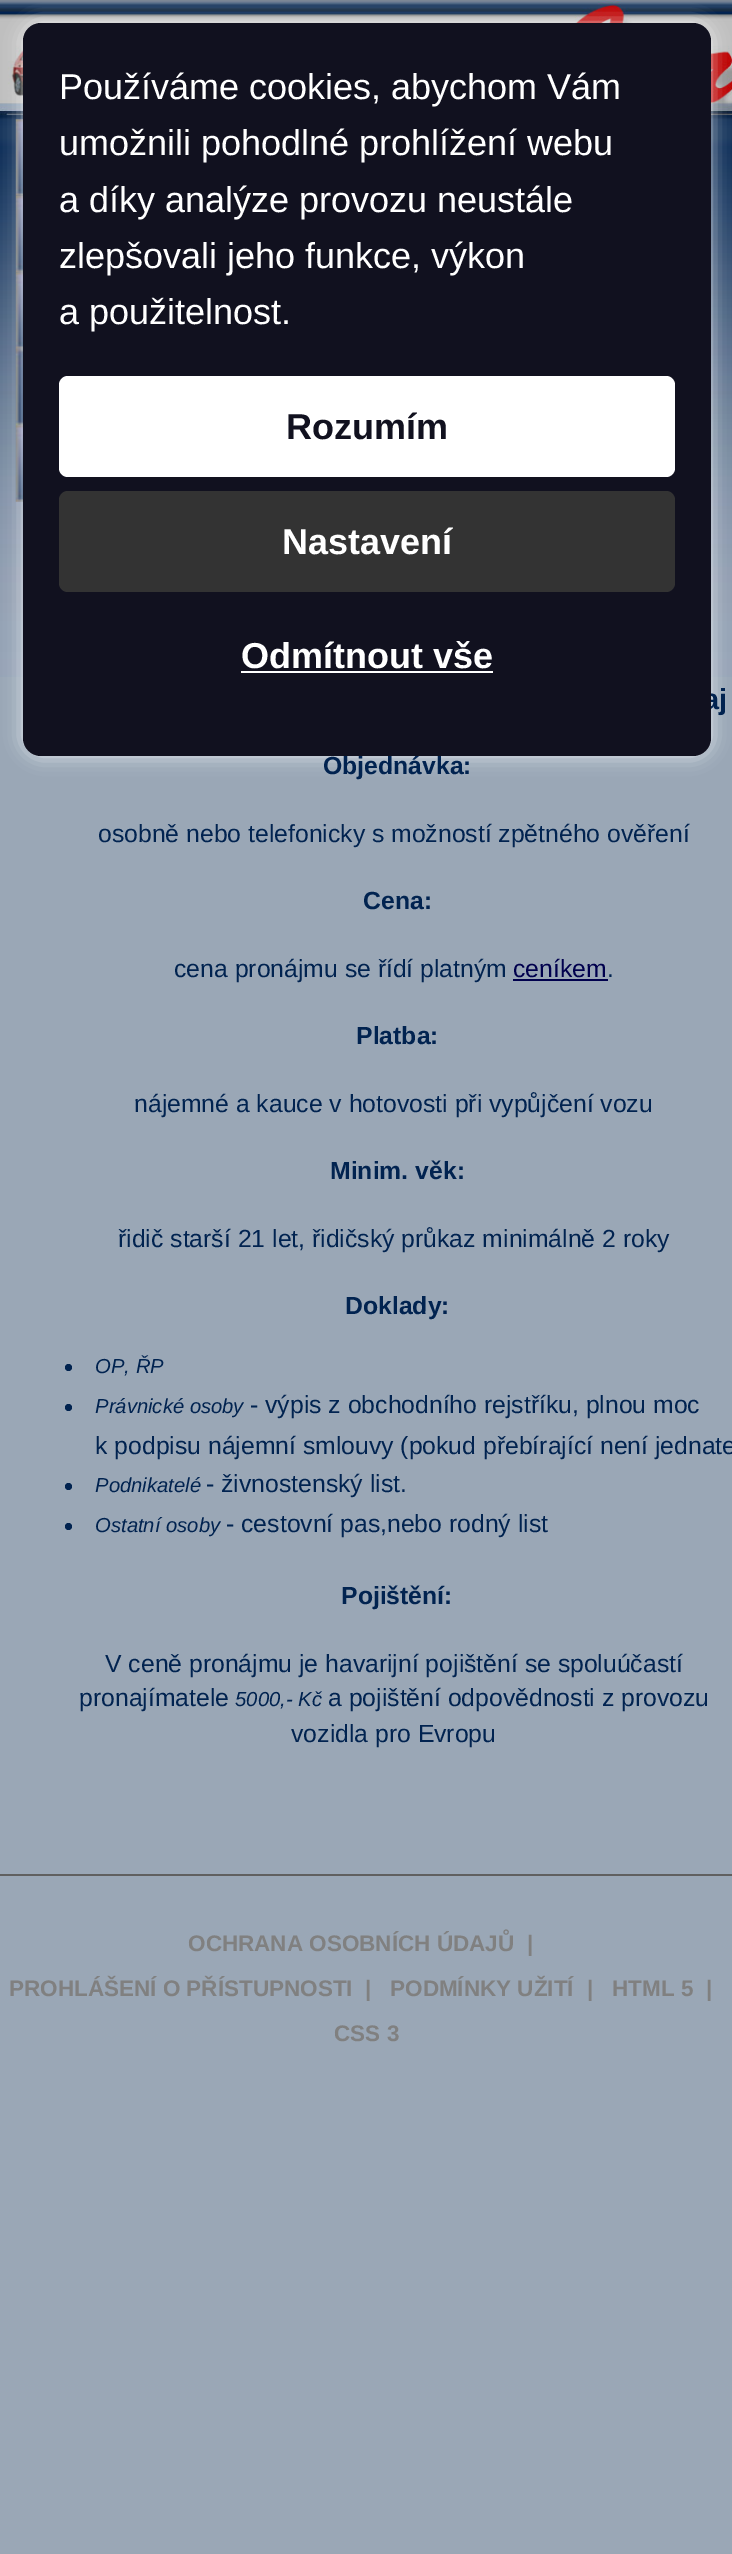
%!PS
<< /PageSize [732 2554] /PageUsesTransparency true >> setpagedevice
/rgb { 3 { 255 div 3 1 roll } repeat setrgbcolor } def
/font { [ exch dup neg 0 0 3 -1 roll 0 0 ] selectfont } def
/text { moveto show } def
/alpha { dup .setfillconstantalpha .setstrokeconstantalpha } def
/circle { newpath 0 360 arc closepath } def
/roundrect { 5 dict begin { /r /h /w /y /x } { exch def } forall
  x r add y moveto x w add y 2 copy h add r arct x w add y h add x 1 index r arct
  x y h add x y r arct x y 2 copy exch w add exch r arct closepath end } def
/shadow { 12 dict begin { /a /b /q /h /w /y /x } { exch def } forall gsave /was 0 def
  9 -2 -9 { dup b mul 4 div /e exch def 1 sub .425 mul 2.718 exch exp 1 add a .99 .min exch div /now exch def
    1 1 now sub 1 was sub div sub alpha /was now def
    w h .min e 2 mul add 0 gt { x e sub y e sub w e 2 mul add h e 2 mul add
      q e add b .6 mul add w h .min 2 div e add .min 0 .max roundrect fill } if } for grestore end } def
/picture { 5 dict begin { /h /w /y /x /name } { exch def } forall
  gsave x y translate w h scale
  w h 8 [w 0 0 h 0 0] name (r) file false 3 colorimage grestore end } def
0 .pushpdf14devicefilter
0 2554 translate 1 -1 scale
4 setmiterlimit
154 167 182 rgb
0 0 732 2554 rectfill
(img_01.rgb) 0 114 732 563 picture
(img_02.rgb) 0 0 732 115 picture
(img_03.rgb) 15 119 8 77 picture
(img_04.rgb) 15 195 8 78 picture
(img_05.rgb) 15 272 8 77 picture
(img_06.rgb) 15 348 8 78 picture
(img_07.rgb) 15 425 8 77 picture
255 255 255 rgb
23 23 688 733 18 9 0.75 shadow
0 0 77 rgb
513 979 95 2 rectfill
1 35 80 rgb
68.5 1367.5 3.5 circle fill
68.5 1407.5 3.5 circle fill
68.5 1486.5 3.5 circle fill
68.5 1526.5 3.5 circle fill
96 96 96 rgb
0 1874 732 2 rectfill
/LiberationSans-Bold 29 font
1 35 80 rgb
(aj) 703 709 text
/LiberationSans-Bold 24.75 font
(Objednávka:) 323 774 text
17 17 31 rgb
23 23 688 733 18 roundrect fill
/LiberationSans-Bold 36 font
255 255 255 rgb
(Odmítnout vše) 241 668 text
241 671 252 2 rectfill
51 51 51 rgb
59 491 616 101 9 roundrect fill
255 255 255 rgb
(Nastavení) 282 554 text
59 376 616 101 9 roundrect fill
17 17 31 rgb
(Rozumím) 286 439 text
/LiberationSans-Regular 36 font
255 255 255 rgb
(a použitelnost.) 59 324 text
(zlepšovali jeho funkce, výkon) 59 268 text
(a díky analýze provozu neustále) 59 212 text
(umožnili pohodlné prohlížení webu) 59 155 text
(Používáme cookies, abychom Vám) 59 99 text
/LiberationSans-Regular 24.75 font
1 35 80 rgb
(osobně nebo telefonicky s možností zpětného ověření) 98 842 text
/LiberationSans-Bold 24.75 font
(Cena:) 363 909 text
/LiberationSans-Regular 24.75 font
(cena pronájmu se řídí platným) 174 977 text
0 0 77 rgb
(ceníkem) 513 977 text
1 35 80 rgb
(.) 607 977 text
/LiberationSans-Bold 24.75 font
(Platba:) 356 1044 text
/LiberationSans-Regular 24.75 font
(nájemné a kauce v hotovosti při vypůjčení vozu) 134 1112 text
/LiberationSans-Bold 24.75 font
(Minim. věk:) 330 1179 text
/LiberationSans-Regular 24.75 font
(řidič starší 21 let, řidičský průkaz minimálně 2 roky) 118 1247 text
/LiberationSans-Bold 24.75 font
(Doklady:) 345 1314 text
/LiberationSans-Italic 20.25 font
(OP, ŘP) 95 1373 text
(Právnické osoby) 95 1413 text
/LiberationSans-Regular 24.75 font
(- výpis z obchodního rejstříku, plnou moc) 250 1413 text
(k podpisu nájemní smlouvy \(pokud přebírající není jednate) 95 1454 text
/LiberationSans-Italic 20.25 font
(Podnikatelé) 95 1492 text
/LiberationSans-Regular 24.75 font
(- živnostenský list.) 206 1492 text
/LiberationSans-Italic 20.25 font
(Ostatní osoby) 95 1532 text
/LiberationSans-Regular 24.75 font
(- cestovní pas,nebo rodný list) 226 1532 text
/LiberationSans-Bold 24.75 font
(Pojištění:) 341 1604 text
/LiberationSans-Regular 24.75 font
(V ceně pronájmu je havarijní pojištění se spoluúčastí) 105 1672 text
(pronajímatele) 79 1706 text
/LiberationSans-Italic 20.25 font
(5000,- Kč) 235 1706 text
/LiberationSans-Regular 24.75 font
(a pojištění odpovědnosti z provozu) 328 1706 text
(vozidla pro Evropu) 291 1742 text
/LiberationSans-Bold 22.5 font
128 128 128 rgb
(OCHRANA OSOBNÍCH ÚDAJŮ) 188 1951 text
(|) 527 1951 text
(PROHLÁŠENÍ O PŘÍSTUPNOSTI) 9 1996 text
(|) 365 1996 text
(PODMÍNKY UŽITÍ) 390 1996 text
(|) 587 1996 text
(HTML 5) 612 1996 text
(|) 706 1996 text
(CSS 3) 334 2041 text
.poppdf14devicefilter showpage
